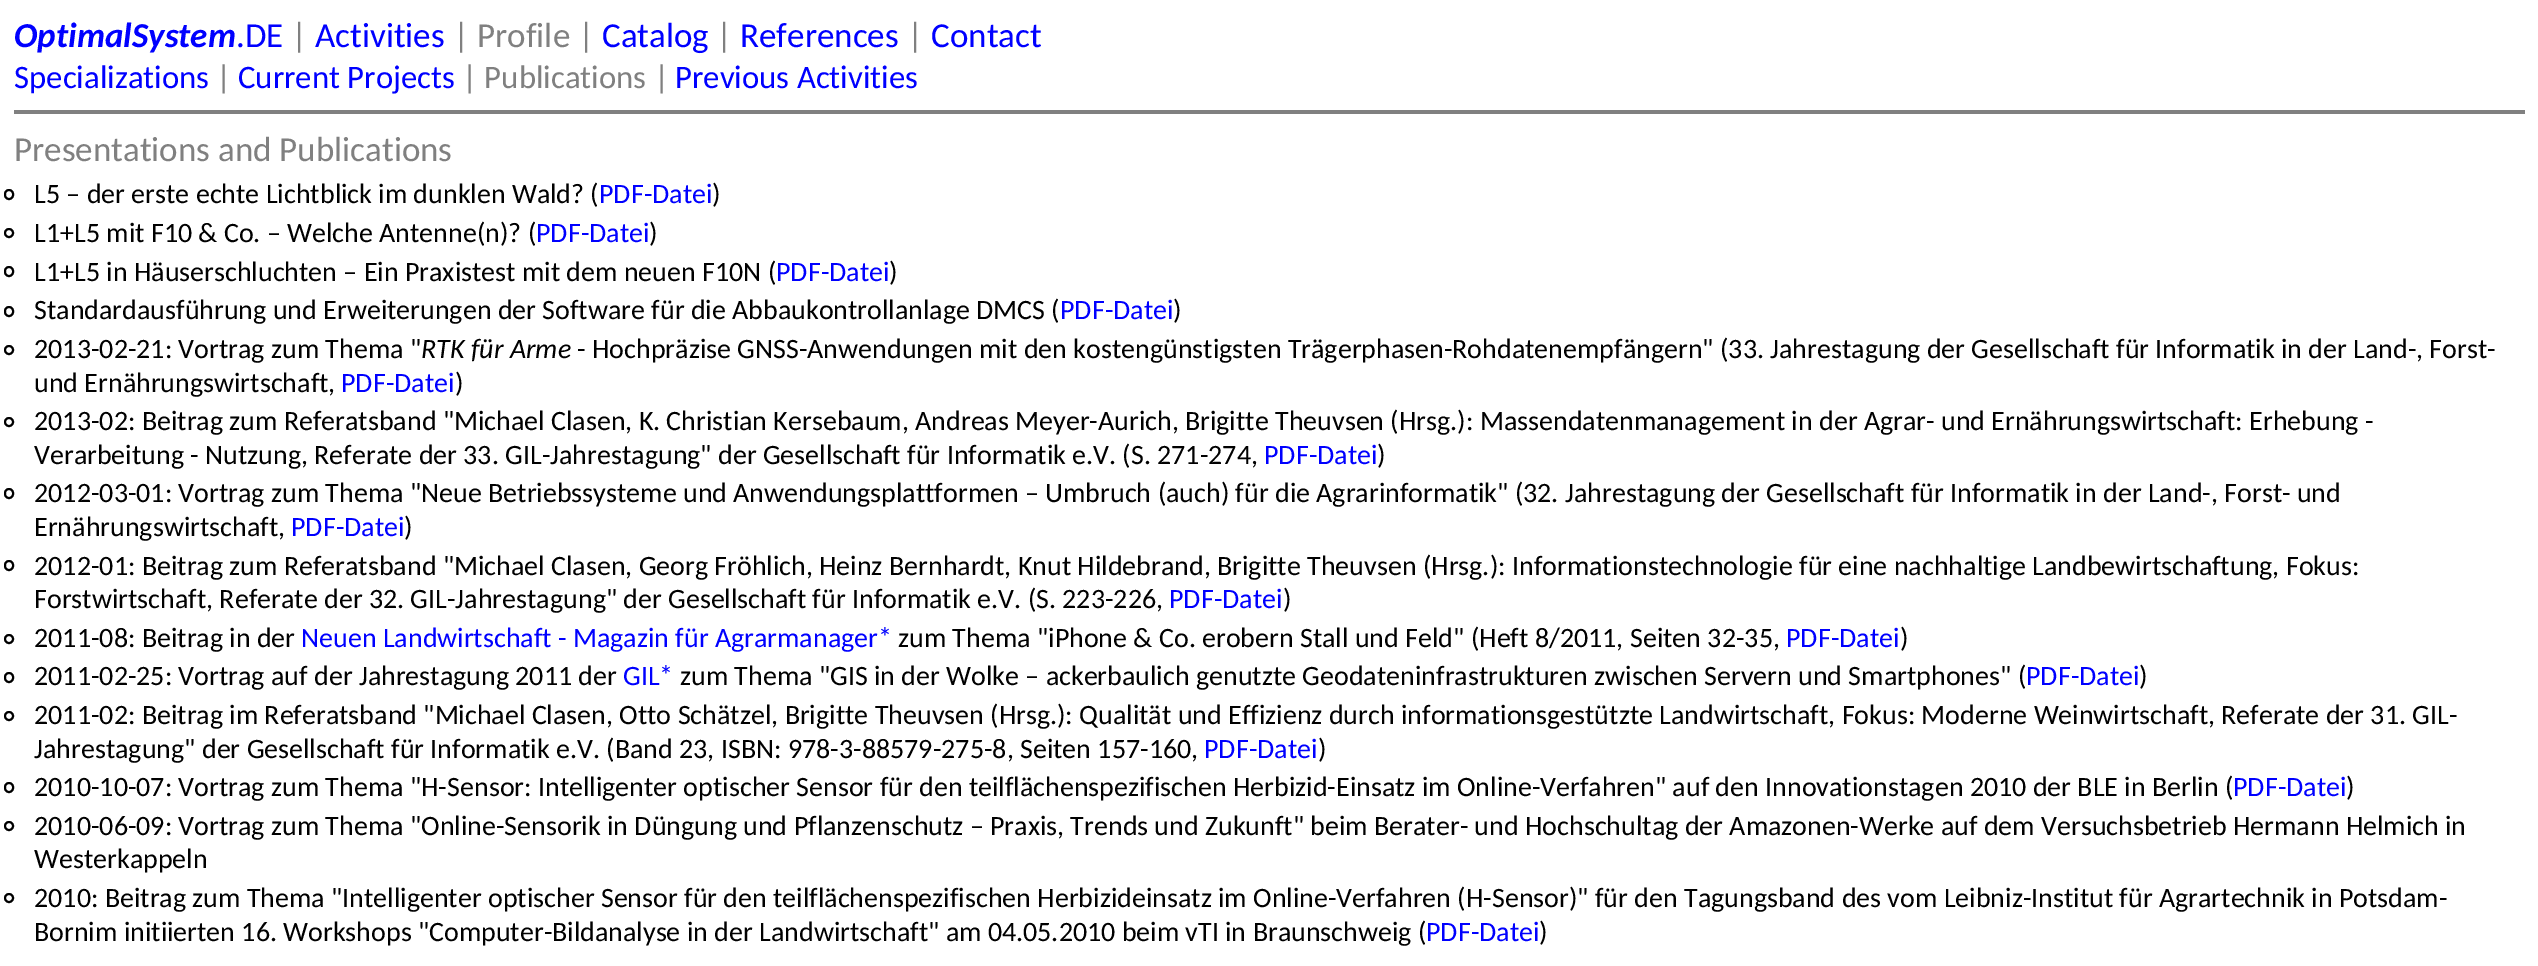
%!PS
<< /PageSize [2538 966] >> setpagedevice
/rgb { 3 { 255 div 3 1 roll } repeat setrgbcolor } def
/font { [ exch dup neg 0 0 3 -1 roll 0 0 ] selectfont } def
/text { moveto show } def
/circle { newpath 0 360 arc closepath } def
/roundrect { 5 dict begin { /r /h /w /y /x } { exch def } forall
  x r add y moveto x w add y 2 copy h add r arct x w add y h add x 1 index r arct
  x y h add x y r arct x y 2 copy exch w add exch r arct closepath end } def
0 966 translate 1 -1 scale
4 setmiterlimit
255 255 255 rgb
0 0 2538 966 rectfill
128 128 128 rgb
14 110 2511 4 rectfill
0 0 0 rgb
2 setlinewidth
5 190 8 9 4 roundrect stroke
9 233 4 circle stroke
5 267 8 9 4 roundrect stroke
5 307 8 9 4 roundrect stroke
9 350 4 circle stroke
9 422 4 circle stroke
5 489 8 9 4 roundrect stroke
5 561 8 9 4 roundrect stroke
9 639 4 circle stroke
5 673 8 9 4 roundrect stroke
9 716 4 circle stroke
5 783 8 9 4 roundrect stroke
9 826 4 circle stroke
9 898 4 circle stroke
/Carlito-BoldItalic 35 font
0 0 255 rgb
(OptimalSystem) 14 47 text
/Carlito-Regular 35 font
(.DE) 236 47 text
128 128 128 rgb
(|) 291 47 text
0 0 255 rgb
(Activities) 315 47 text
128 128 128 rgb
(| Profile |) 453 47 text
0 0 255 rgb
(Catalog) 602 47 text
128 128 128 rgb
(|) 716 47 text
0 0 255 rgb
(References) 740 47 text
128 128 128 rgb
(|) 907 47 text
0 0 255 rgb
(Contact) 931 47 text
/Carlito-Regular 32.75 font
(Specializations) 14 88 text
128 128 128 rgb
(|) 216 88 text
0 0 255 rgb
(Current Projects) 238 88 text
128 128 128 rgb
(| Publications |) 462 88 text
0 0 255 rgb
(Previous Activities) 675 88 text
/Carlito-Regular 35 font
128 128 128 rgb
(Presentations and Publications) 14 161 text
/Carlito-Regular 28 font
0 0 0 rgb
(L5 – der erste echte Lichtblick im dunklen Wald? \() 34 203 text
0 0 255 rgb
(PDF-Datei) 599 203 text
0 0 0 rgb
(\)) 712 203 text
(L1+L5 mit F10 & Co. – Welche Antenne\(n\)? \() 34 242 text
0 0 255 rgb
(PDF-Datei) 536 242 text
0 0 0 rgb
(\)) 649 242 text
(L1+L5 in Häuserschluchten – Ein Praxistest mit dem neuen F10N \() 34 281 text
0 0 255 rgb
(PDF-Datei) 776 281 text
0 0 0 rgb
(\)) 889 281 text
(Standardausführung und Erweiterungen der Software für die Abbaukontrollanlage DMCS \() 34 319 text
0 0 255 rgb
(PDF-Datei) 1060 319 text
0 0 0 rgb
(\)) 1173 319 text
(2013-02-21: Vortrag zum Thema ") 34 358 text
/Carlito-Italic 28 font
(RTK für Arme) 421 358 text
/Carlito-Regular 28 font
(- Hochpräzise GNSS-Anwendungen mit den kostengünstigsten Trägerphasen-Rohdatenempfängern" \(33. Jahrestagung der Gesellschaft für Informatik in der Land-, Forst-) 577 358 text
(und Ernährungswirtschaft,) 34 392 text
0 0 255 rgb
(PDF-Datei) 341 392 text
0 0 0 rgb
(\)) 455 392 text
(2013-02: Beitrag zum Referatsband "Michael Clasen, K. Christian Kersebaum, Andreas Meyer-Aurich, Brigitte Theuvsen \(Hrsg.\): Massendatenmanagement in der Agrar- und Ernährungswirtschaft: Erhebung -) 34 430 text
(Verarbeitung - Nutzung, Referate der 33. GIL-Jahrestagung" der Gesellschaft für Informatik e.V. \(S. 271-274,) 34 464 text
0 0 255 rgb
(PDF-Datei) 1264 464 text
0 0 0 rgb
(\)) 1377 464 text
(2012-03-01: Vortrag zum Thema "Neue Betriebssysteme und Anwendungsplattformen – Umbruch \(auch\) für die Agrarinformatik" \(32. Jahrestagung der Gesellschaft für Informatik in der Land-, Forst- und) 34 502 text
(Ernährungswirtschaft,) 34 536 text
0 0 255 rgb
(PDF-Datei) 291 536 text
0 0 0 rgb
(\)) 404 536 text
(2012-01: Beitrag zum Referatsband "Michael Clasen, Georg Fröhlich, Heinz Bernhardt, Knut Hildebrand, Brigitte Theuvsen \(Hrsg.\): Informationstechnologie für eine nachhaltige Landbewirtschaftung, Fokus:) 34 575 text
(Forstwirtschaft, Referate der 32. GIL-Jahrestagung" der Gesellschaft für Informatik e.V. \(S. 223-226,) 34 608 text
0 0 255 rgb
(PDF-Datei) 1169 608 text
0 0 0 rgb
(\)) 1283 608 text
(2011-08: Beitrag in der) 34 647 text
0 0 255 rgb
(Neuen Landwirtschaft - Magazin für Agrarmanager*) 301 647 text
0 0 0 rgb
(zum Thema "iPhone & Co. erobern Stall und Feld" \(Heft 8/2011, Seiten 32-35,) 898 647 text
0 0 255 rgb
(PDF-Datei) 1786 647 text
0 0 0 rgb
(\)) 1900 647 text
(2011-02-25: Vortrag auf der Jahrestagung 2011 der) 34 685 text
0 0 255 rgb
(GIL*) 623 685 text
0 0 0 rgb
(zum Thema "GIS in der Wolke – ackerbaulich genutzte Geodateninfrastrukturen zwischen Servern und Smartphones" \() 680 685 text
0 0 255 rgb
(PDF-Datei) 2026 685 text
0 0 0 rgb
(\)) 2139 685 text
(2011-02: Beitrag im Referatsband "Michael Clasen, Otto Schätzel, Brigitte Theuvsen \(Hrsg.\): Qualität und Effizienz durch informationsgestützte Landwirtschaft, Fokus: Moderne Weinwirtschaft, Referate der 31. GIL-) 34 724 text
(Jahrestagung" der Gesellschaft für Informatik e.V. \(Band 23, ISBN: 978-3-88579-275-8, Seiten 157-160,) 34 758 text
0 0 255 rgb
(PDF-Datei) 1204 758 text
0 0 0 rgb
(\)) 1318 758 text
(2010-10-07: Vortrag zum Thema "H-Sensor: Intelligenter optischer Sensor für den teilflächenspezifischen Herbizid-Einsatz im Online-Verfahren" auf den Innovationstagen 2010 der BLE in Berlin \() 34 796 text
0 0 255 rgb
(PDF-Datei) 2233 796 text
0 0 0 rgb
(\)) 2346 796 text
(2010-06-09: Vortrag zum Thema "Online-Sensorik in Düngung und Pflanzenschutz – Praxis, Trends und Zukunft" beim Berater- und Hochschultag der Amazonen-Werke auf dem Versuchsbetrieb Hermann Helmich in) 34 835 text
(Westerkappeln) 34 868 text
(2010: Beitrag zum Thema "Intelligenter optischer Sensor für den teilflächenspezifischen Herbizideinsatz im Online-Verfahren \(H-Sensor\)" für den Tagungsband des vom Leibniz-Institut für Agrartechnik in Potsdam-) 34 907 text
(Bornim initiierten 16. Workshops "Computer-Bildanalyse in der Landwirtschaft" am 04.05.2010 beim vTI in Braunschweig \() 34 941 text
0 0 255 rgb
(PDF-Datei) 1426 941 text
0 0 0 rgb
(\)) 1539 941 text
showpage
